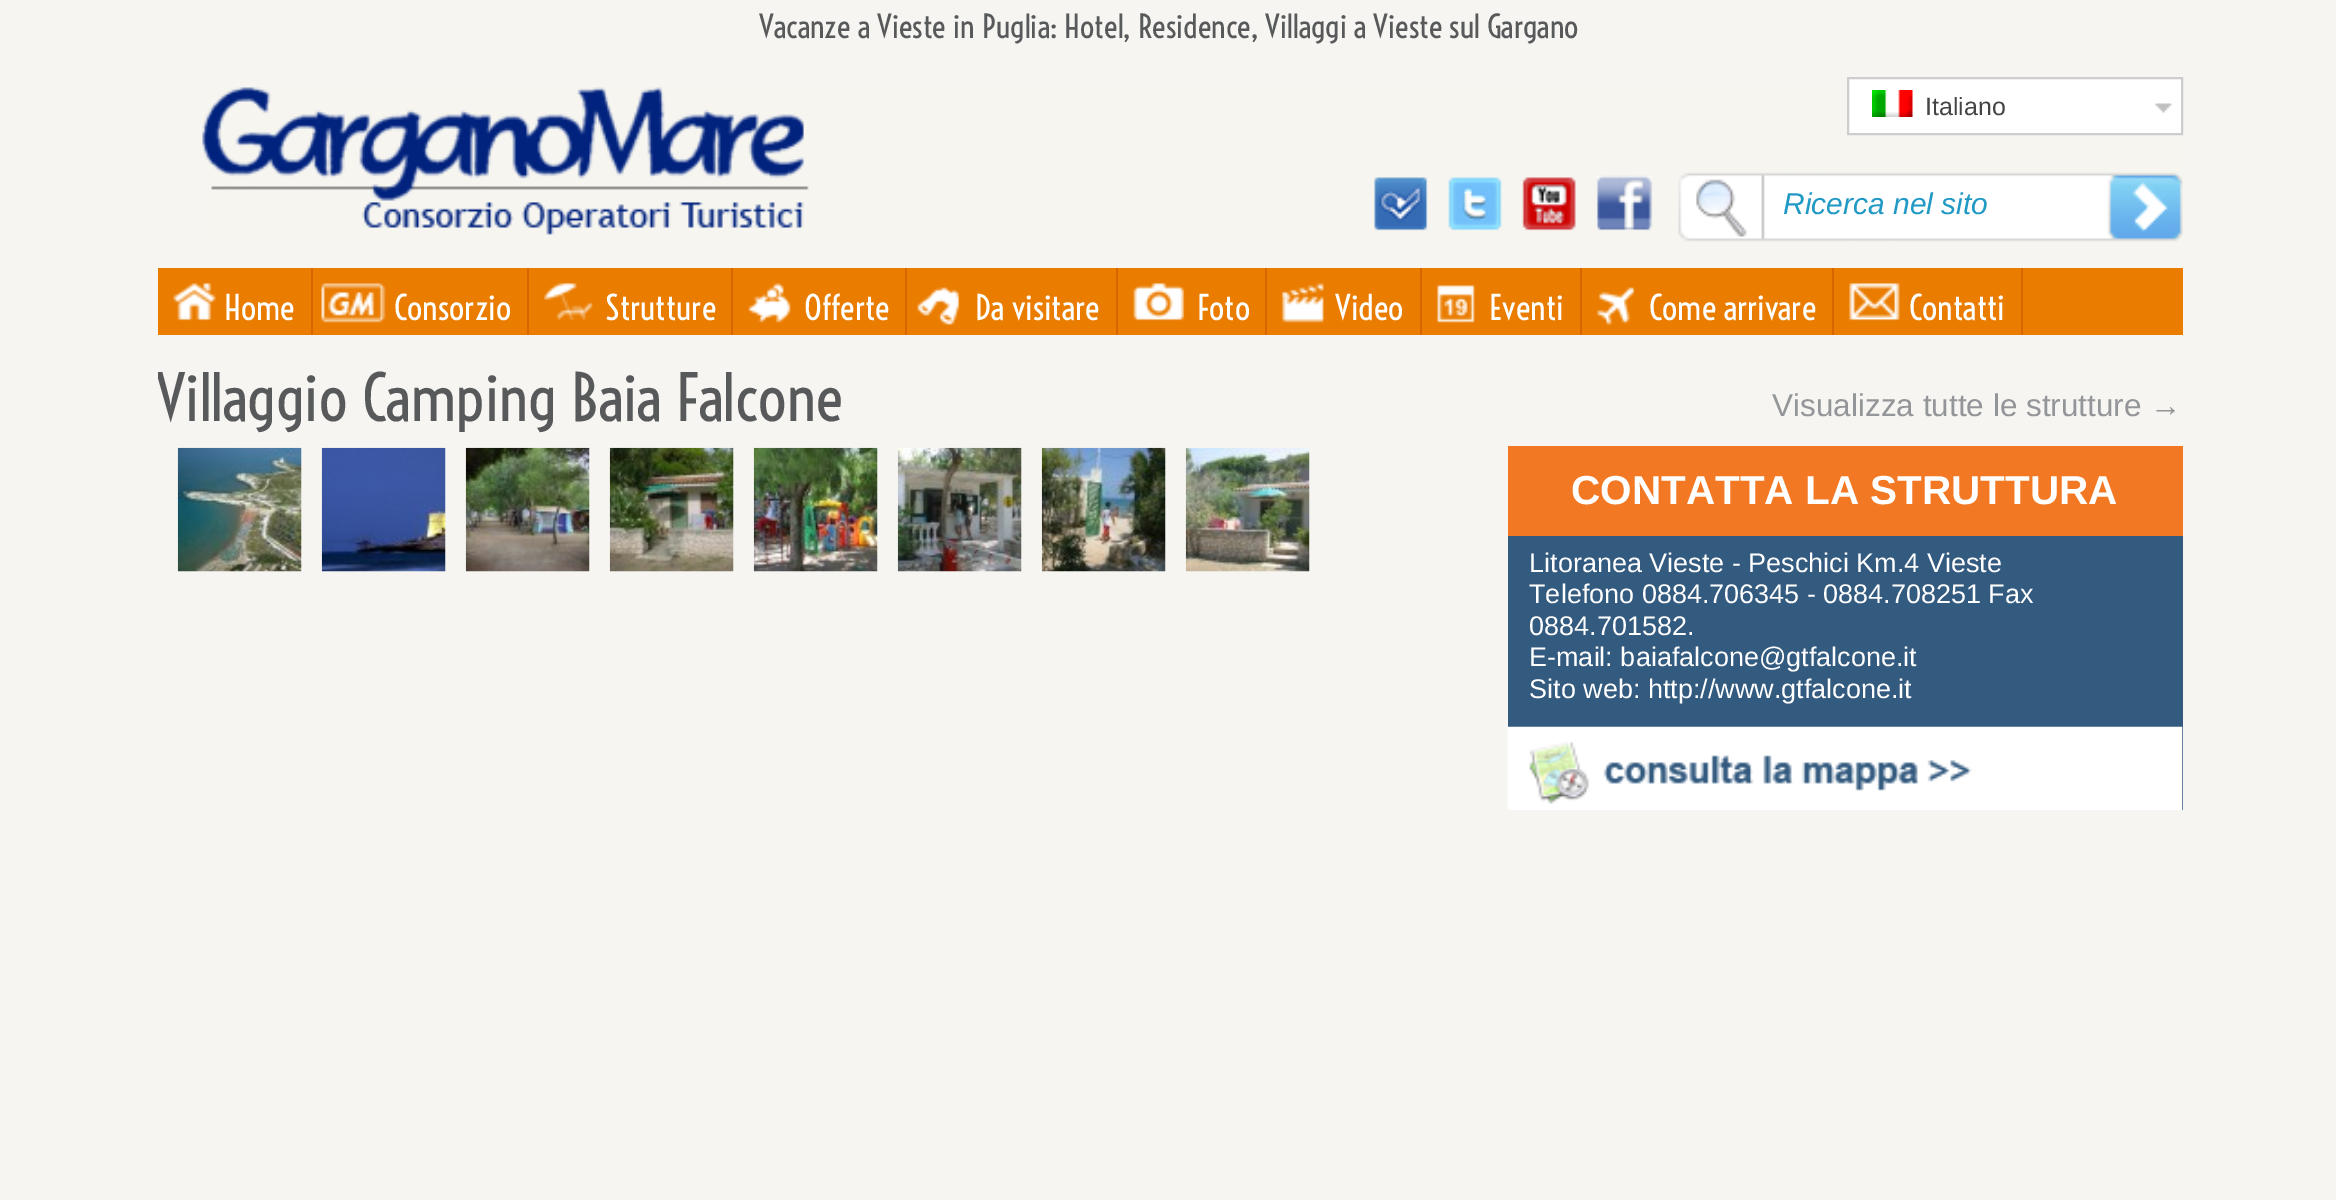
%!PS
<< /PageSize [2336 1200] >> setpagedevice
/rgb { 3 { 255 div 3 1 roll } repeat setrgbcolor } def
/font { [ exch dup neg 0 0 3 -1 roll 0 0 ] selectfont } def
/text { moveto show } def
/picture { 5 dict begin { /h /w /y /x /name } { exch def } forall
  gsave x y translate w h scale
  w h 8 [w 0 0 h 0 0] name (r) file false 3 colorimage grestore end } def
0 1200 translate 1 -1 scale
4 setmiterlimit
246 245 241 rgb
0 0 2336 1200 rectfill
(img_01.rgb) 202 87 1981 155 picture
255 255 255 rgb
1849 79 332 54 rectfill
(img_02.rgb) 2155 103 17 10 picture
205 205 205 rgb
2 setlinewidth
1848 78 334 56 rectstroke
(img_03.rgb) 1872 90 41 27 picture
234 124 0 rgb
158 268 2025 67 rectfill
215 101 0 rgb
311 268 2 67 rectfill
(img_04.rgb) 173 283 43 38 picture
527 268 2 67 rectfill
(img_05.rgb) 321 283 65 40 picture
731 268 2 67 rectfill
(img_06.rgb) 544 283 49 37 picture
905 268 2 67 rectfill
(img_07.rgb) 748 283 43 40 picture
1116 268 2 67 rectfill
(img_08.rgb) 917 287 43 38 picture
1265 268 2 67 rectfill
(img_09.rgb) 1133 283 52 38 picture
1420 268 2 67 rectfill
(img_10.rgb) 1282 283 42 40 picture
1580 268 2 67 rectfill
(img_11.rgb) 1437 285 38 38 picture
1832 268 2 67 rectfill
(img_12.rgb) 1597 287 38 38 picture
2021 268 2 67 rectfill
(img_13.rgb) 1849 283 51 38 picture
(img_14.rgb) 177 447 125 125 picture
(img_15.rgb) 321 447 125 125 picture
(img_16.rgb) 465 447 125 125 picture
(img_17.rgb) 609 447 125 125 picture
(img_18.rgb) 753 447 125 125 picture
(img_19.rgb) 897 447 125 125 picture
(img_20.rgb) 1041 447 125 125 picture
(img_21.rgb) 1185 447 125 125 picture
51 90 127 rgb
1508 536 675 274 rectfill
243 120 35 rgb
1508 446 675 90 rectfill
(img_22.rgb) 1507 726 676 84 picture
/Voltaire-Regular 31.5 font
88 89 91 rgb
(Vacanze a Vieste in Puglia: Hotel, Residence, Villaggi a Vieste sul Gargano) 759 38 text
/LiberationSans-Regular 25 font
68 68 68 rgb
(Italiano) 1925 115 text
/LiberationSans-Italic 30 font
32 153 196 rgb
(Ricerca nel sito) 1783 214 text
/Voltaire-Regular 33.75 font
255 255 255 rgb
(Home) 224 320 text
(Consorzio) 394 320 text
(Strutture) 605 320 text
(Offerte) 804 320 text
(Da visitare) 975 320 text
(Foto) 1197 320 text
(Video) 1335 320 text
(Eventi) 1489 320 text
(Come arrivare) 1649 320 text
(Contatti) 1909 320 text
gsave
158 369 1316 203 rectclip
/Voltaire-Regular 63 font
88 89 91 rgb
(Villaggio Camping Baia Falcone) 156 421 text
grestore
/LiberationSans-Regular 31.5 font
147 149 152 rgb
(Visualizza tutte le strutture →) 1772 416 text
/LiberationSans-Bold 40.5 font
255 255 255 rgb
(CONTATTA LA STRUTTURA) 1571 504 text
/LiberationSans-Regular 27 font
(Litoranea Vieste - Peschici Km.4 Vieste) 1529 572 text
(Telefono 0884.706345 - 0884.708251 Fax) 1529 603 text
(0884.701582.) 1529 635 text
(E-mail: baiafalcone@gtfalcone.it) 1529 666 text
(Sito web: http://www.gtfalcone.it) 1529 698 text
showpage
